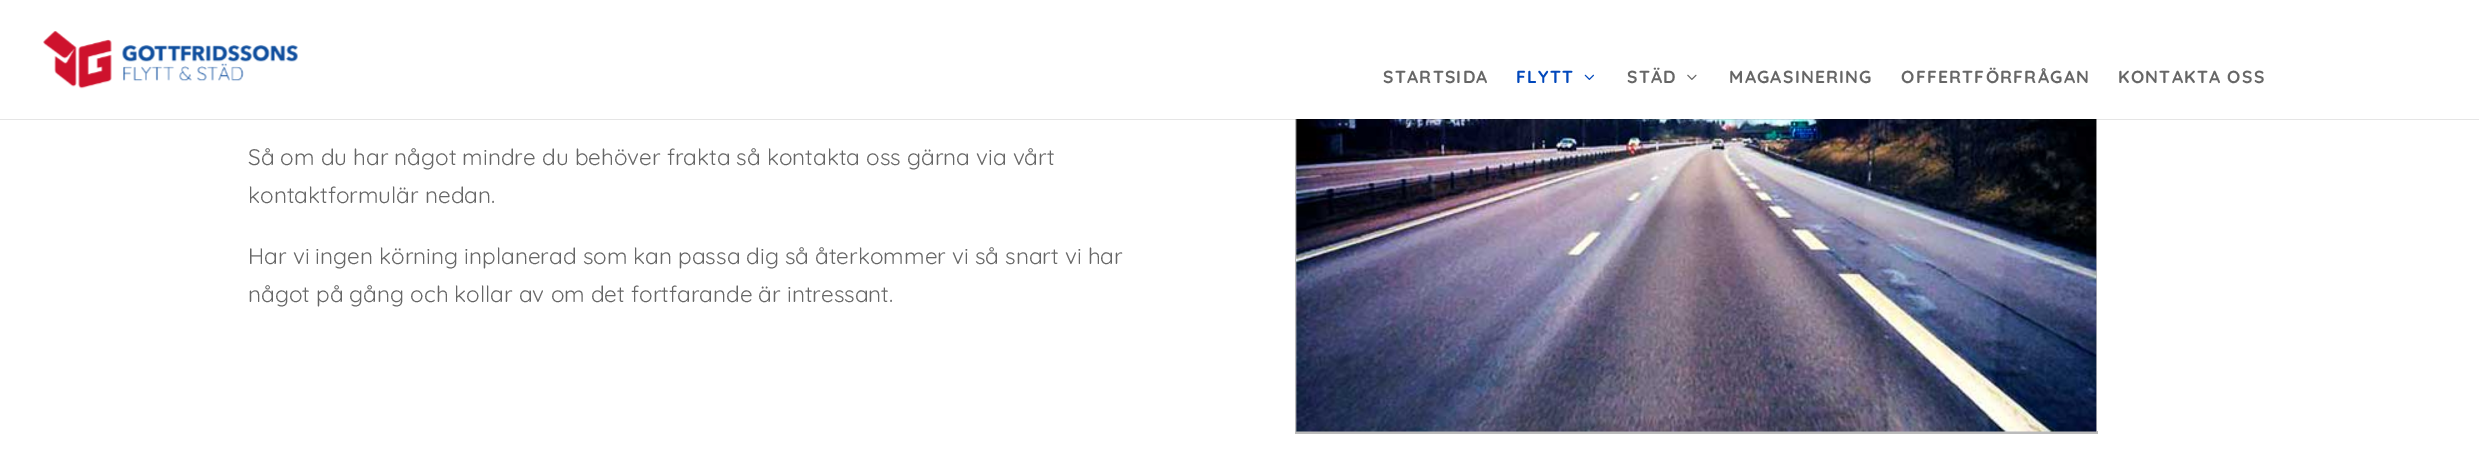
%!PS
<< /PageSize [2479 466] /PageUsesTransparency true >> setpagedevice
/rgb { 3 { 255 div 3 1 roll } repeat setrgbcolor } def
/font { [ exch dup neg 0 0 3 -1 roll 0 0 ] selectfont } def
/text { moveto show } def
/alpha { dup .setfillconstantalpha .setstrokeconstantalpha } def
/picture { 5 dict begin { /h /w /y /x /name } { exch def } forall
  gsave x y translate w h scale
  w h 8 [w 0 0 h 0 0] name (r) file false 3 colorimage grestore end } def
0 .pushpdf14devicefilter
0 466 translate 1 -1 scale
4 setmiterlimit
255 255 255 rgb
0 0 2479 466 rectfill
187 187 187 rgb
2096 119 1 315 rectfill
1295 431 803 3 rectfill
1295 119 1 315 rectfill
(img_04.rgb) 1296 119 801 313 picture
0.1 alpha
0 0 0 rgb
0 119 2479 1 rectfill
1 alpha
(img_01.rgb) 43 31 255 58 picture
(img_02.rgb) 1584 74 10 6 picture
(img_03.rgb) 1687 74 10 6 picture
/Quicksand-Bold 17.5 font
102 102 102 rgb
1383 83 moveto 1.25 0 (STARTSIDA) ashow
0 71 187 rgb
1516 83 moveto 1.25 0 (FLYTT) ashow
102 102 102 rgb
1627 83 moveto 1.25 0 (STÄD) ashow
1729 83 moveto 1.25 0 (MAGASINERING) ashow
1901 83 moveto 1.25 0 (OFFERTFÖRFRÅGAN) ashow
2118 83 moveto 1.25 0 (KONTAKTA OSS) ashow
/Quicksand-Regular 22.5 font
(Så om du har något mindre du behöver frakta så kontakta oss gärna via vårt) 248 165 text
(kontaktformulär nedan.) 248 203 text
(Har vi ingen körning inplanerad som kan passa dig så återkommer vi så snart vi har) 248 264 text
(något på gång och kollar av om det fortfarande är intressant.) 248 302 text
.poppdf14devicefilter showpage
